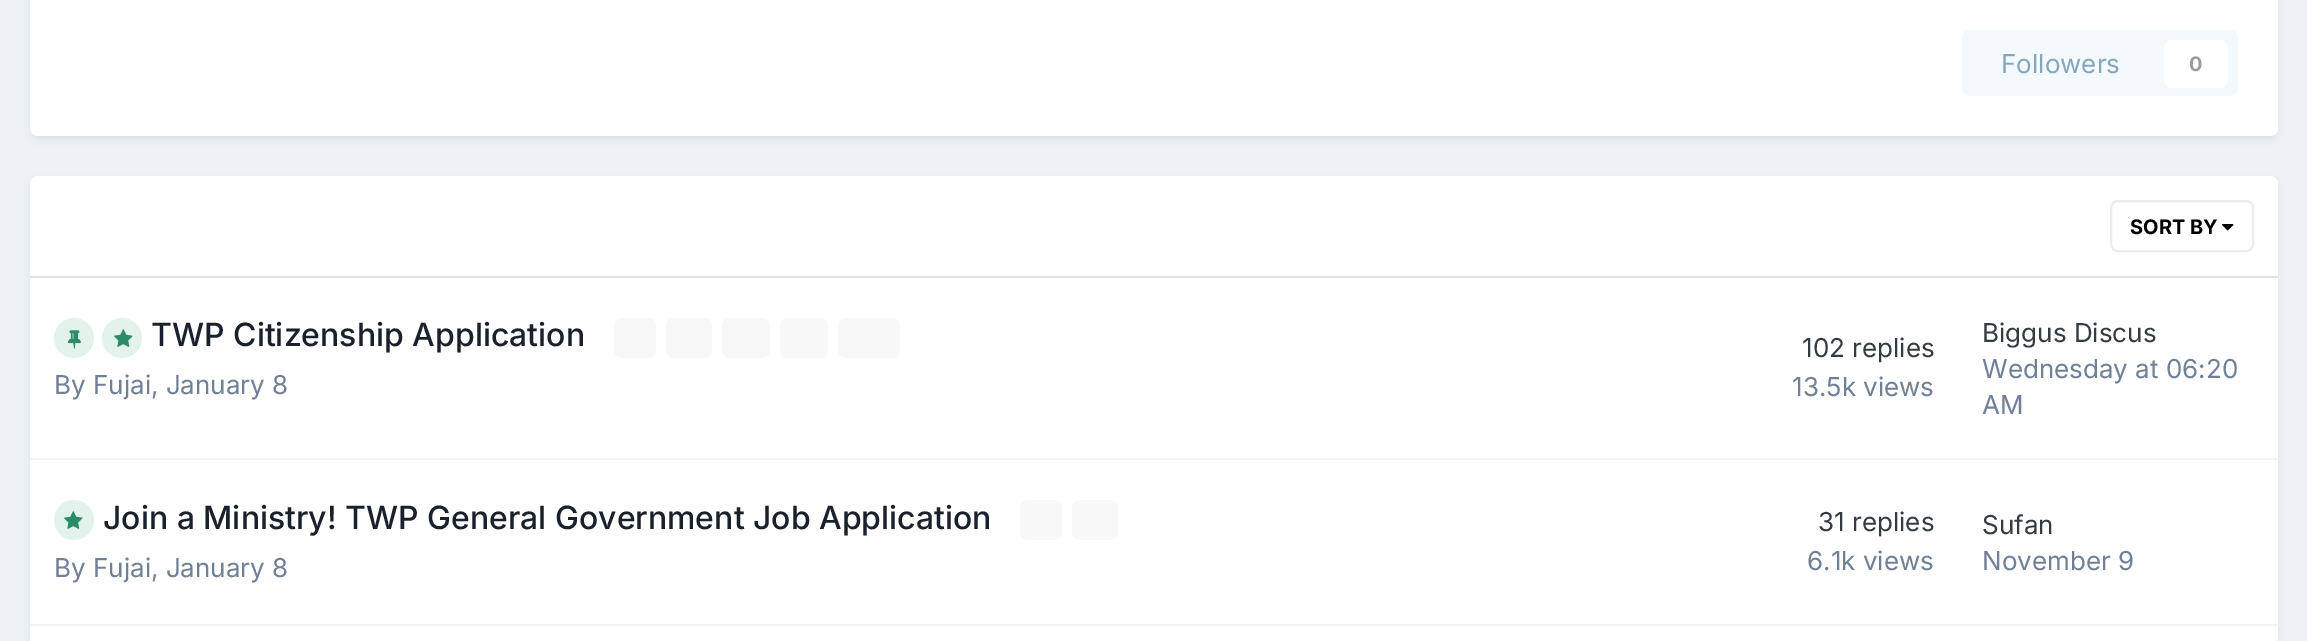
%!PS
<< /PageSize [2307 641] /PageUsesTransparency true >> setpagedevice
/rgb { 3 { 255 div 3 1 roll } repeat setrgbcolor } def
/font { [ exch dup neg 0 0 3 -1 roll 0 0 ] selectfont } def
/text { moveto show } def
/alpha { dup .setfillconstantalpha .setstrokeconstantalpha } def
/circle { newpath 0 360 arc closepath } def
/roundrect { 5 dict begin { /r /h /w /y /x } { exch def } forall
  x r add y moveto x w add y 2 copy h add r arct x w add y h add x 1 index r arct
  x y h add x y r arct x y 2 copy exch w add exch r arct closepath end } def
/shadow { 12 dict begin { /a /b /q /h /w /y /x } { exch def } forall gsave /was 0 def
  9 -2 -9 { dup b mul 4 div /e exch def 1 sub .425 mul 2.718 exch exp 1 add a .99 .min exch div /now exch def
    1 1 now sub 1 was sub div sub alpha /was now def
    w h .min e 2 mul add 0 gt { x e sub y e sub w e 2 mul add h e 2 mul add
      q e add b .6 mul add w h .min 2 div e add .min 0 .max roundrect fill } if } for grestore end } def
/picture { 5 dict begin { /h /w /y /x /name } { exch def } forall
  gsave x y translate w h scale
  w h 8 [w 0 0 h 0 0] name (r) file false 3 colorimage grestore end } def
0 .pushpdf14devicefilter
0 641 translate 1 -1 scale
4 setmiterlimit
237 240 244 rgb
0 0 2307 641 rectfill
45 55 72 rgb
32 -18 2244 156 6 4 0.1 shadow
255 255 255 rgb
30 -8 2248 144 8 roundrect fill
244 249 253 rgb
1962 30 276 66 8 roundrect fill
255 255 255 rgb
2164 40 64 48 8 roundrect fill
45 55 72 rgb
32 182 2244 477 6 4 0.1 shadow
255 255 255 rgb
30 176 2248 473 8 roundrect fill
38 176 moveto 2232 0 rlineto 4.5 0 8 3.5 8 8 rcurveto 0 94 rlineto -2248 0 rlineto 0 -94 rlineto 0 -4.5 3.5 -8 8 -8 rcurveto closepath fill
225 226 227 rgb
30 276 2248 2 rectfill
(img_01.rgb) 2222 224 12 7 picture
235 236 236 rgb
2 setlinewidth
2111 201 142 50 7 roundrect stroke
241 242 245 rgb
30 458 2248 2 rectfill
227 243 236 rgb
74 338 20 circle fill
(img_02.rgb) 68 330 13 19 picture
122 338 20 circle fill
(img_03.rgb) 114 329 19 18 picture
248 248 249 rgb
614 318 42 40 8 roundrect fill
666 318 46 40 8 roundrect fill
722 318 48 40 8 roundrect fill
780 318 48 40 8 roundrect fill
838 318 62 40 8 roundrect fill
241 242 245 rgb
30 624 2248 2 rectfill
227 243 236 rgb
74 520 20 circle fill
(img_03.rgb) 64 511 19 18 picture
248 248 249 rgb
1020 500 42 40 8 roundrect fill
1072 500 46 40 8 roundrect fill
/Inter-Regular 26 font
135 166 188 rgb
(Followers) 2001 73 text
/Inter-Bold 20 font
154 158 160 rgb
(0) 2189 71 text
0 0 0 rgb
(SORT BY) 2130 234 text
/Inter-Medium 32 font
26 32 44 rgb
(TWP Citizenship Application) 151 346 text
/Inter-Regular 26 font
113 128 150 rgb
(By Fujai, January 8) 54 394 text
53 60 65 rgb
(102 replies) 1802 357 text
113 128 150 rgb
(13.5k views) 1792 396 text
53 60 65 rgb
(Biggus Discus) 1982 342 text
113 128 150 rgb
(Wednesday at 06:20) 1982 378 text
(AM) 1982 414 text
/Inter-Medium 32 font
26 32 44 rgb
(Join a Ministry! TWP General Government Job Application) 103 529 text
/Inter-Regular 26 font
113 128 150 rgb
(By Fujai, January 8) 54 577 text
53 60 65 rgb
(31 replies) 1818 531 text
113 128 150 rgb
(6.1k views) 1807 570 text
53 60 65 rgb
(Sufan) 1982 534 text
113 128 150 rgb
(November 9) 1982 570 text
.poppdf14devicefilter showpage
